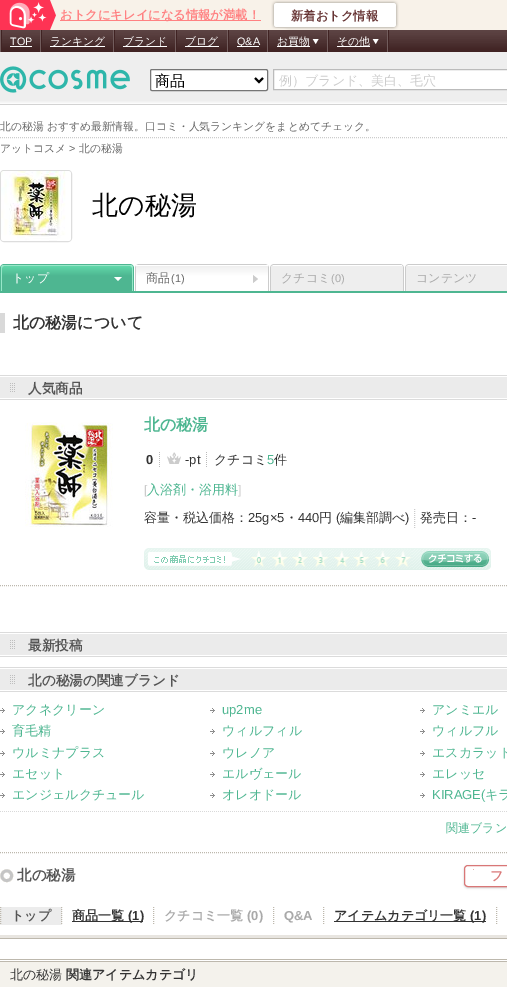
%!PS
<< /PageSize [507 987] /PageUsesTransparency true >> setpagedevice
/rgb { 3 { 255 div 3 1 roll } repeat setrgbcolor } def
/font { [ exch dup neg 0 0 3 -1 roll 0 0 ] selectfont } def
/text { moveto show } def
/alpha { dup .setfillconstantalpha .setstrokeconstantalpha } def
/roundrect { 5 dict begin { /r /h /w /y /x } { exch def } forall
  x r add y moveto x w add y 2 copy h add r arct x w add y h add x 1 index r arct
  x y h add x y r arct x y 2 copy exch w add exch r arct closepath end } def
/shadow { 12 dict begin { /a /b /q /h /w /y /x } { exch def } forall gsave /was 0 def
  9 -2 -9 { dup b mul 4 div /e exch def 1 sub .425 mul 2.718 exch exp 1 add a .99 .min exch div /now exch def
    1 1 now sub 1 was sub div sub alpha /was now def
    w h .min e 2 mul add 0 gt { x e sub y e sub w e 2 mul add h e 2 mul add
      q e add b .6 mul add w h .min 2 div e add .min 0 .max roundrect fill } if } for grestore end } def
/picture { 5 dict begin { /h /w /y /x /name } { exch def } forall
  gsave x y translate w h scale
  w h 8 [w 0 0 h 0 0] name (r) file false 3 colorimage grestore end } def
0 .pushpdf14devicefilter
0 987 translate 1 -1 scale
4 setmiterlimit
255 255 255 rgb
0 0 507 987 rectfill
248 242 233 rgb
50 0 457 30 rectfill
(img_01.rgb) 0 0 56 30 picture
255 129 130 rgb
60 20 201 1 rectfill
(img_02.rgb) 271 0 128 30 picture
(img_03.rgb) 0 30 507 75 picture
64 35 35 rgb
388 30 1 22 rectfill
114 93 93 rgb
0 30 1 22 rectfill
40 30 1 22 rectfill
64 35 35 rgb
1 30 1 22 rectfill
255 255 255 rgb
10 46 22 1 rectfill
114 93 93 rgb
113 30 1 22 rectfill
64 35 35 rgb
41 30 1 22 rectfill
255 255 255 rgb
50 46 55 1 rectfill
114 93 93 rgb
175 30 1 22 rectfill
64 35 35 rgb
114 30 1 22 rectfill
255 255 255 rgb
123 46 44 1 rectfill
114 93 93 rgb
227 30 1 22 rectfill
64 35 35 rgb
176 30 1 22 rectfill
255 255 255 rgb
185 46 34 1 rectfill
114 93 93 rgb
267 30 1 22 rectfill
64 35 35 rgb
228 30 1 22 rectfill
255 255 255 rgb
237 46 22 1 rectfill
114 93 93 rgb
327 30 1 22 rectfill
64 35 35 rgb
268 30 1 22 rectfill
255 255 255 rgb
277 46 33 1 rectfill
(img_04.rgb) 312 39 7 5 picture
114 93 93 rgb
387 30 1 22 rectfill
64 35 35 rgb
328 30 1 22 rectfill
255 255 255 rgb
337 46 33 1 rectfill
(img_04.rgb) 372 39 7 5 picture
(img_05.rgb) 0 66 130 27 picture
150.5 69.5 117 21 1.5 roundrect gsave fill grestore
118 118 118 rgb
stroke
0 0 0 rgb
2 setlinewidth
255 78 moveto 4 4 rlineto 4 -4 rlineto stroke
255 255 255 rgb
273.5 69.5 moveto 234 0 rlineto 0 20 rlineto -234 0 rlineto closepath gsave fill grestore
187 187 187 rgb
1 setlinewidth
stroke
204 204 204 rgb
[1 1] 0 setdash
0 137.5 moveto 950 0 rlineto stroke
221 221 221 rgb
[] 0 setdash
0.5 170.5 71 71 3.5 roundrect stroke
(img_06.rgb) 1 171 70 70 picture
78 182 145 rgb
0 291 507 2 rectfill
4 264 moveto 126 0 rlineto 2 0 4 2 4 4 rcurveto 0 23 rlineto -134 0 rlineto 0 -23 rlineto 0 -2 2 -4 4 -4 rcurveto closepath 4 265 moveto 126 0 rlineto 2 0 3 1 3 3 rcurveto 0 23 rlineto -132 0 rlineto 0 -23 rlineto 0 -2 1 -3 3 -3 rcurveto closepath eofill
gsave
4 265 moveto 126 0 rlineto 1.5 0 3 1.5 3 3 rcurveto 0 23 rlineto -132 0 rlineto 0 -23 rlineto 0 -1.5 1.5 -3 3 -3 rcurveto closepath clip newpath
gsave 1 266 moveto 132 0 rlineto 0 25 rlineto -132 0 rlineto closepath clip newpath
<< /ShadingType 2 /ColorSpace /DeviceRGB /Coords [67 266 67 291] /Extend [true true] /Function << /FunctionType 3 /Domain [0 1] /Functions [<< /FunctionType 2 /Domain [0 1] /C0 [0.376 0.847 0.667] /C1 [0.306 0.714 0.569] /N 1 >> << /FunctionType 2 /Domain [0 1] /C0 [0.306 0.714 0.569] /C1 [0.306 0.714 0.569] /N 1 >>] /Bounds [0.4] /Encode [0 1 0 1] >> >> shfill grestore
grestore
152 231 201 rgb
4 265 moveto 126 0 rlineto 2 0 3 1 3 3 rcurveto 0 23 rlineto -132 0 rlineto 0 -23 rlineto 0 -2 1 -3 3 -3 rcurveto closepath 4 266 moveto 126 0 rlineto 1 0 2 1 2 2 rcurveto 0 23 rlineto -130 0 rlineto 0 -23 rlineto 0 -1 1 -2 2 -2 rcurveto closepath eofill
255 255 255 rgb
114 277 moveto 8 0 rlineto -4 4 rlineto closepath fill
204 204 204 rgb
139 264 moveto 126 0 rlineto 2 0 4 2 4 4 rcurveto 0 23 rlineto -134 0 rlineto 0 -23 rlineto 0 -2 2 -4 4 -4 rcurveto closepath 139 265 moveto 126 0 rlineto 2 0 3 1 3 3 rcurveto 0 23 rlineto -132 0 rlineto 0 -23 rlineto 0 -2 1 -3 3 -3 rcurveto closepath eofill
gsave
139 265 moveto 126 0 rlineto 1.5 0 3 1.5 3 3 rcurveto 0 23 rlineto -132 0 rlineto 0 -23 rlineto 0 -1.5 1.5 -3 3 -3 rcurveto closepath clip newpath
gsave 136 265 moveto 132 0 rlineto 0 1 rlineto -132 0 rlineto closepath clip newpath
<< /ShadingType 2 /ColorSpace /DeviceRGB /Coords [202 241 202 266] /Extend [true true] /Function << /FunctionType 3 /Domain [0 1] /Functions [<< /FunctionType 2 /Domain [0 1] /C0 [0.937 0.937 0.937] /C1 [1 1 1] /N 1 >> << /FunctionType 2 /Domain [0 1] /C0 [1 1 1] /C1 [1 1 1] /N 1 >>] /Bounds [0.4] /Encode [0 1 0 1] >> >> shfill grestore
gsave 136 266 moveto 132 0 rlineto 0 25 rlineto -132 0 rlineto closepath clip newpath
<< /ShadingType 2 /ColorSpace /DeviceRGB /Coords [202 266 202 291] /Extend [true true] /Function << /FunctionType 3 /Domain [0 1] /Functions [<< /FunctionType 2 /Domain [0 1] /C0 [0.937 0.937 0.937] /C1 [1 1 1] /N 1 >> << /FunctionType 2 /Domain [0 1] /C0 [1 1 1] /C1 [1 1 1] /N 1 >>] /Bounds [0.4] /Encode [0 1 0 1] >> >> shfill grestore
grestore
255 255 255 rgb
266 265 1 1 rectfill
204 204 204 rgb
253 283 moveto 0 -8 rlineto 5 4 rlineto closepath fill
274 264 moveto 126 0 rlineto 2 0 4 2 4 4 rcurveto 0 23 rlineto -134 0 rlineto 0 -23 rlineto 0 -2 2 -4 4 -4 rcurveto closepath 274 265 moveto 126 0 rlineto 2 0 3 1 3 3 rcurveto 0 23 rlineto -132 0 rlineto 0 -23 rlineto 0 -2 1 -3 3 -3 rcurveto closepath eofill
238 238 238 rgb
274 265 moveto 126 0 rlineto 1.5 0 3 1.5 3 3 rcurveto 0 23 rlineto -132 0 rlineto 0 -23 rlineto 0 -1.5 1.5 -3 3 -3 rcurveto closepath fill
255 255 255 rgb
273 265 129 1 rectfill
204 204 204 rgb
409 264 moveto 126 0 rlineto 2 0 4 2 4 4 rcurveto 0 23 rlineto -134 0 rlineto 0 -23 rlineto 0 -2 2 -4 4 -4 rcurveto closepath 409 265 moveto 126 0 rlineto 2 0 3 1 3 3 rcurveto 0 23 rlineto -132 0 rlineto 0 -23 rlineto 0 -2 1 -3 3 -3 rcurveto closepath eofill
238 238 238 rgb
409 265 moveto 98 0 rlineto 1.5 0 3 1.5 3 3 rcurveto 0 23 rlineto -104 0 rlineto 0 -23 rlineto 0 -1.5 1.5 -3 3 -3 rcurveto closepath fill
255 255 255 rgb
408 265 99 1 rectfill
217 217 217 rgb
0 313 5 20 rectfill
219 219 219 rgb
0 375 507 1 rectfill
0 399 507 1 rectfill
235 235 235 rgb
0 377 507 21 rectfill
(img_07.rgb) 10 383 5 9 picture
189 184 174 rgb
[1 1] 0 setdash
0 585.5 moveto 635 0 rlineto stroke
(img_08.rgb) 25 422 88 105 picture
(img_09.rgb) 159 452 1 15 picture
(img_10.rgb) 167 452 14 12 picture
(img_09.rgb) 206 452 1 15 picture
204 204 204 rgb
414.5 509 moveto 0 19 rlineto stroke
(img_11.rgb) 144 548 347 22 picture
(img_12.rgb) 251 549 17 20 picture
(img_13.rgb) 271 549 17 20 picture
(img_14.rgb) 291 549 18 20 picture
(img_15.rgb) 313 549 17 20 picture
(img_16.rgb) 333 549 18 20 picture
(img_17.rgb) 353 549 18 20 picture
(img_18.rgb) 374 549 17 20 picture
(img_19.rgb) 394 549 18 20 picture
(img_20.rgb) 421 551 68 16 picture
219 219 219 rgb
0 632 507 1 rectfill
0 656 507 1 rectfill
235 235 235 rgb
0 634 507 21 rectfill
(img_07.rgb) 10 640 5 9 picture
219 219 219 rgb
0 667 507 1 rectfill
0 691 507 1 rectfill
235 235 235 rgb
0 669 507 21 rectfill
(img_07.rgb) 10 675 5 9 picture
(img_21.rgb) 0 811 507 1 picture
(img_22.rgb) 0 708 5 5 picture
(img_22.rgb) 210 708 5 5 picture
(img_22.rgb) 420 708 5 5 picture
(img_22.rgb) 0 729 5 5 picture
(img_22.rgb) 210 729 5 5 picture
(img_22.rgb) 420 729 5 5 picture
(img_22.rgb) 0 751 5 5 picture
(img_22.rgb) 210 751 5 5 picture
(img_22.rgb) 420 751 5 5 picture
(img_22.rgb) 0 772 5 5 picture
(img_22.rgb) 210 772 5 5 picture
(img_22.rgb) 420 772 5 5 picture
(img_22.rgb) 0 793 5 5 picture
(img_22.rgb) 210 793 5 5 picture
(img_22.rgb) 420 793 5 5 picture
189 184 173 rgb
0 852.5 moveto 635 0 rlineto stroke
0 938 507 1 rectfill
(img_23.rgb) 0 869 14 14 picture
0 0 0 rgb
464 866 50 22 4 1 0.2 shadow
255 255 255 rgb
464.5 865.5 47 21 3.5 roundrect gsave fill grestore
217 119 119 rgb
[] 0 setdash
stroke
232 173 173 rgb
473 869 1 1 rectfill
232 229 224 rgb
0 935 507 3 rectfill
236 236 236 rgb
0 907 62 18 rectfill
189 184 173 rgb
[1 1] 0 setdash
61.5 907 moveto 0 18 rlineto 0.5 907 moveto 0 18 rlineto stroke
153.5 907 moveto 0 18 rlineto stroke
51 51 51 rgb
72 921 71 1 rectfill
189 184 173 rgb
273.5 907 moveto 0 18 rlineto stroke
323.5 907 moveto 0 18 rlineto stroke
496.5 907 moveto 0 18 rlineto stroke
51 51 51 rgb
334 921 152 1 rectfill
189 184 173 rgb
0 959 507 1 rectfill
0 961 507 1 rectfill
244 242 236 rgb
0 962 507 25 rectfill
/WenQuanYiZenHei-Bold 12.3 font
255 129 130 rgb
(おトクにキレイになる情報が満載！) 60 19 text
102 51 51 rgb
(新着おトク情報) 291 20 text
/LiberationSans-Regular 10.8 font
255 255 255 rgb
(TOP) 10 45 text
/WenQuanYiZenHei-Medium 10.8 font
(ランキング) 50 45 text
(ブランド) 123 45 text
(ブログ) 185 45 text
/LiberationSans-Regular 10.8 font
(Q&A) 237 45 text
/WenQuanYiZenHei-Medium 10.8 font
(お買物) 277 45 text
(その他) 337 45 text
/WenQuanYiZenHei-Medium 15 font
0 0 0 rgb
(商品) 155 86 text
/WenQuanYiZenHei-Medium 13 font
204 204 204 rgb
(例）ブランド、美白、毛穴) 279 85 text
/WenQuanYiZenHei-Medium 10.8 font
102 102 102 rgb
(北の秘湯 おすすめ最新情報。口コミ・人気ランキングをまとめてチェック。) 0 130 text
(アットコスメ) 0 152 text
/LiberationSans-Regular 10.8 font
(>) 69 152 text
/WenQuanYiZenHei-Medium 10.8 font
(北の秘湯) 79 152 text
/WenQuanYiZenHei-Medium 26 font
0 0 0 rgb
(北の秘湯) 92 214 text
/WenQuanYiZenHei-Medium 12 font
255 255 255 rgb
(トップ) 12 282 text
102 102 102 rgb
(商品) 146 282 text
/LiberationSans-Regular 11 font
(\(1\)) 171 282 text
/WenQuanYiZenHei-Medium 12 font
169 169 169 rgb
(クチコミ) 281 282 text
/LiberationSans-Regular 11 font
(\(0\)) 331 282 text
/WenQuanYiZenHei-Medium 12 font
(コンテンツ) 416 282 text
/WenQuanYiZenHei-Bold 16 font
51 51 51 rgb
(北の秘湯について) 13 328 text
/WenQuanYiZenHei-Bold 13.6 font
85 85 85 rgb
(人気商品) 28 393 text
/WenQuanYiZenHei-Bold 16 font
78 182 145 rgb
(北の秘湯) 144 430 text
/LiberationSans-Bold 13 font
51 51 51 rgb
(0) 146 464 text
/LiberationSans-Regular 13 font
(-pt) 185 464 text
/WenQuanYiZenHei-Medium 13 font
(クチコミ) 214 464 text
/LiberationSans-Regular 13 font
78 182 145 rgb
(5) 267 464 text
/WenQuanYiZenHei-Medium 13 font
51 51 51 rgb
(件) 274 464 text
/LiberationSans-Regular 12.3 font
204 204 204 rgb
([) 144 494 text
/WenQuanYiZenHei-Medium 13 font
78 182 145 rgb
(入浴剤・浴用料) 147 494 text
/LiberationSans-Regular 12.3 font
204 204 204 rgb
(]) 238 494 text
/WenQuanYiZenHei-Medium 13 font
51 51 51 rgb
(容量・税込価格：) 144 522 text
/LiberationSans-Regular 13 font
(25g×5) 248 522 text
/WenQuanYiZenHei-Medium 13 font
(・) 285 522 text
/LiberationSans-Regular 13 font
(440) 298 522 text
/WenQuanYiZenHei-Medium 13 font
(円) 319 522 text
/LiberationSans-Regular 13 font
(\() 336 522 text
/WenQuanYiZenHei-Medium 13 font
(編集部調べ) 340 522 text
/LiberationSans-Regular 13 font
(\)) 405 522 text
/WenQuanYiZenHei-Medium 13 font
(発売日：) 420 522 text
/LiberationSans-Regular 13 font
(-) 472 522 text
/WenQuanYiZenHei-Bold 13.6 font
85 85 85 rgb
(最新投稿) 28 650 text
(北の秘湯の関連ブランド) 28 685 text
/WenQuanYiZenHei-Medium 13 font
78 182 145 rgb
(アクネクリーン) 12 714 text
/LiberationSans-Regular 13 font
(up2me) 222 714 text
/WenQuanYiZenHei-Medium 13 font
(アンミエル) 432 714 text
(育毛精) 12 735 text
(ウィルフィル) 222 735 text
(ウィルフル) 432 735 text
(ウルミナプラス) 12 757 text
(ウレノア) 222 757 text
(エスカラット) 432 757 text
(エセット) 12 778 text
(エルヴェール) 222 778 text
(エレッセ) 432 778 text
(エンジェルクチュール) 12 799 text
(オレオドール) 222 799 text
/LiberationSans-Regular 13 font
(KIRAGE\() 432 799 text
/WenQuanYiZenHei-Medium 13 font
(キラ) 485 799 text
/WenQuanYiZenHei-Medium 12 font
(関連ブラン) 446 832 text
/WenQuanYiZenHei-Bold 14.5 font
85 85 85 rgb
(北の秘湯) 17 880 text
/WenQuanYiZenHei-Bold 13 font
217 119 119 rgb
(フ) 490 880 text
85 85 85 rgb
(トップ) 11 920 text
51 51 51 rgb
(商品一覧) 72 920 text
/LiberationSans-Bold 13 font
(\(1\)) 128 920 text
/WenQuanYiZenHei-Bold 13 font
169 169 169 rgb
(クチコミ一覧) 164 920 text
/LiberationSans-Bold 13 font
(\(0\)) 247 920 text
(Q&A) 284 920 text
/WenQuanYiZenHei-Bold 13 font
51 51 51 rgb
(アイテムカテゴリ一覧) 334 920 text
/LiberationSans-Bold 13 font
(\(1\)) 470 920 text
/WenQuanYiZenHei-Medium 13 font
(北の秘湯) 10 979 text
/WenQuanYiZenHei-Bold 13 font
(関連アイテムカテゴリ) 66 979 text
.poppdf14devicefilter showpage
